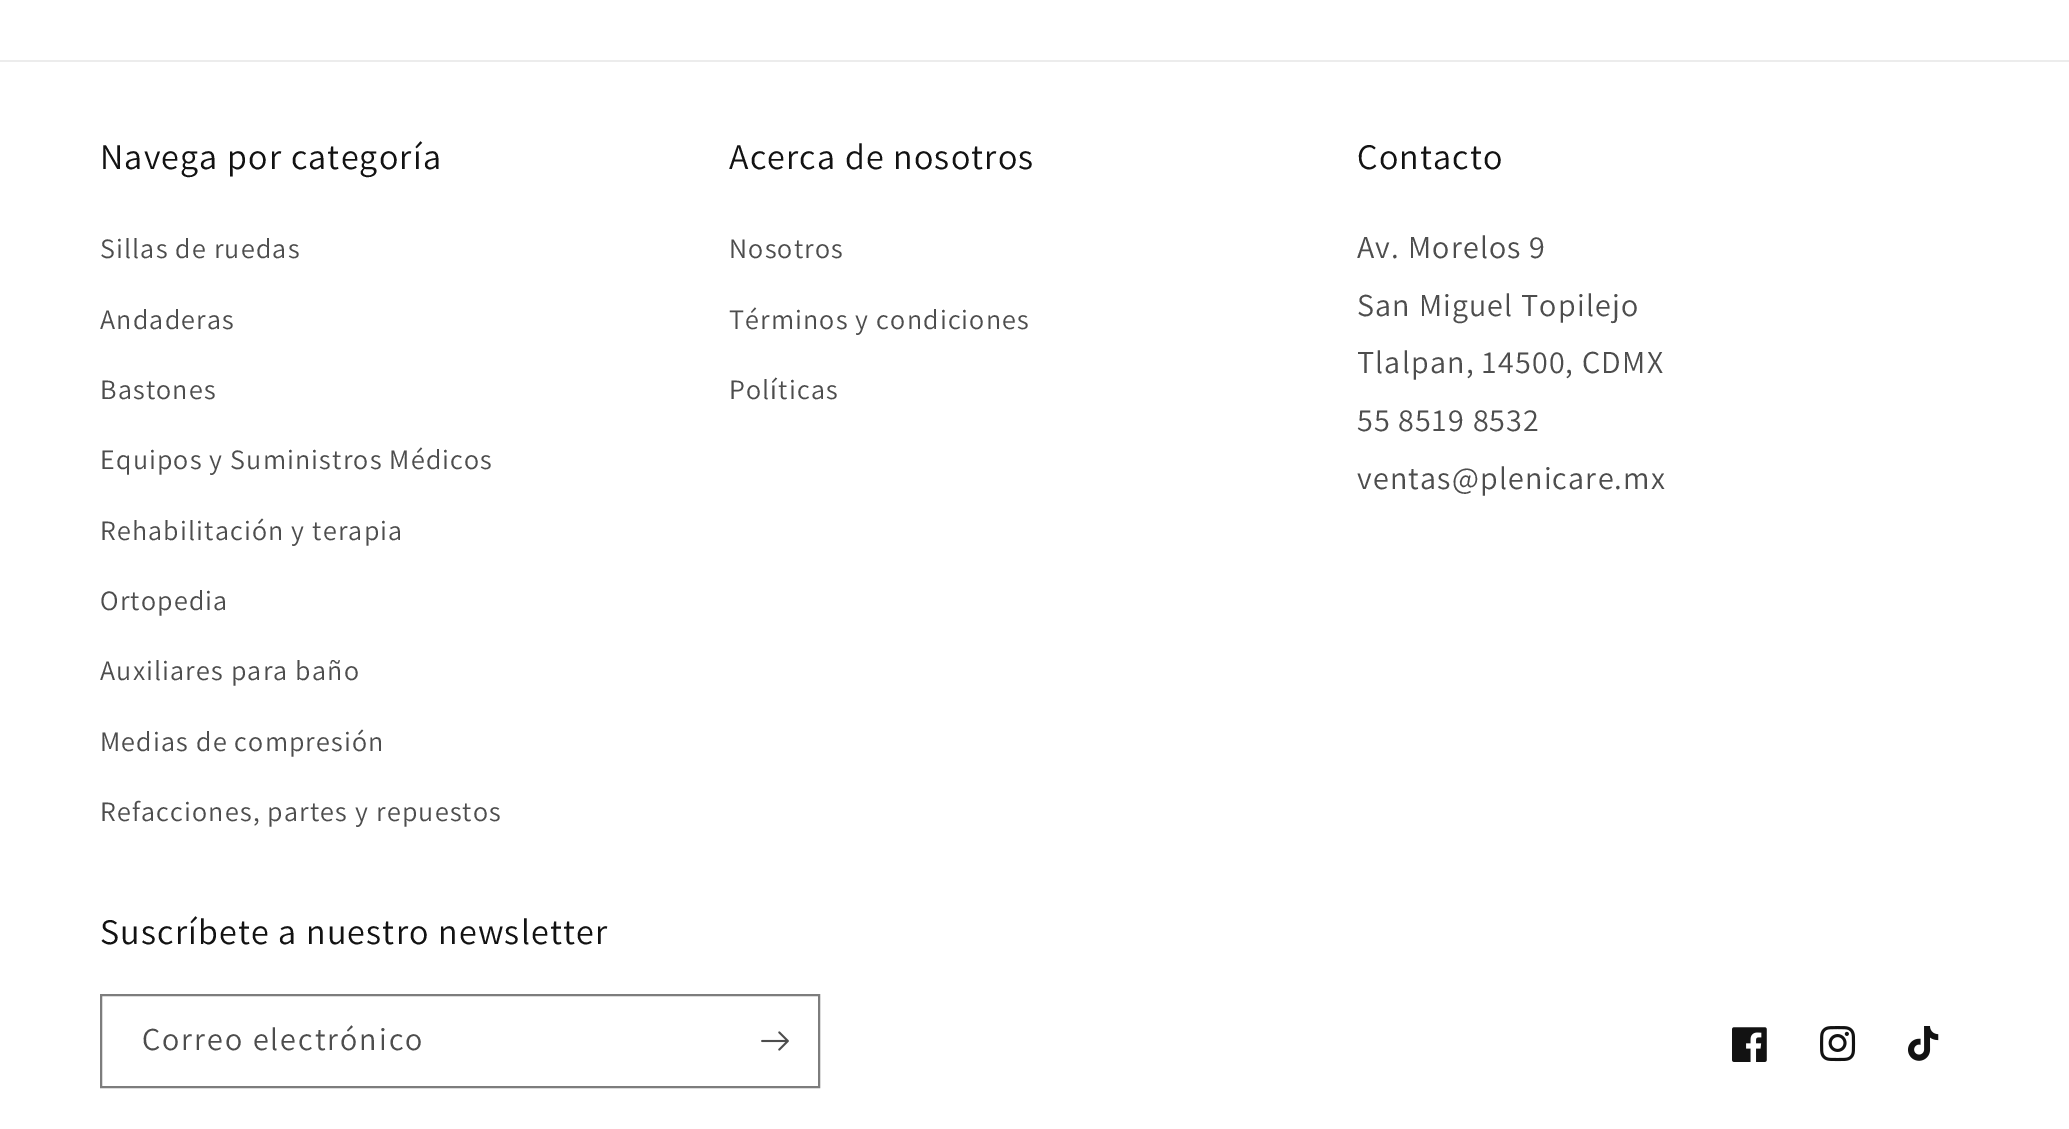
%!PS
<< /PageSize [2069 1129] >> setpagedevice
/rgb { 3 { 255 div 3 1 roll } repeat setrgbcolor } def
/font { [ exch dup neg 0 0 3 -1 roll 0 0 ] selectfont } def
/picture { 5 dict begin { /h /w /y /x /name } { exch def } forall
  gsave x y translate w h scale
  w h 8 [w 0 0 h 0 0] name (r) file false 3 colorimage grestore end } def
0 1129 translate 1 -1 scale
4 setmiterlimit
255 255 255 rgb
0 0 2069 1129 rectfill
236 236 236 rgb
0 60 2069 2 rectfill
125 125 125 rgb
2 setlinewidth
101 995 718 92 rectstroke
(img_01.rgb) 761 1031 28 20 picture
(img_02.rgb) 1732 1027 35 35 picture
(img_03.rgb) 1820 1026 36 36 picture
(img_04.rgb) 1908 1026 31 35 picture
/Assistant-Regular 36 font
18 18 18 rgb
100 169 moveto 1.2 0 (Navega por categoría) ashow
/Assistant-Regular 28 font
77 77 77 rgb
100 258 moveto 1.2 0 (Sillas de ruedas) ashow
100 329 moveto 1.2 0 (Andaderas) ashow
100 399 moveto 1.2 0 (Bastones) ashow
100 469 moveto 1.2 0 (Equipos y Suministros Médicos) ashow
100 540 moveto 1.2 0 (Rehabilitación y terapia) ashow
100 610 moveto 1.2 0 (Ortopedia) ashow
100 680 moveto 1.2 0 (Auxiliares para baño) ashow
100 751 moveto 1.2 0 (Medias de compresión) ashow
100 821 moveto 1.2 0 (Refacciones, partes y repuestos) ashow
/Assistant-Regular 36 font
18 18 18 rgb
729 169 moveto 1.2 0 (Acerca de nosotros) ashow
/Assistant-Regular 28 font
77 77 77 rgb
729 258 moveto 1.2 0 (Nosotros) ashow
729 329 moveto 1.2 0 (Términos y condiciones) ashow
729 399 moveto 1.2 0 (Políticas) ashow
/Assistant-Regular 36 font
18 18 18 rgb
1357 169 moveto 1.2 0 (Contacto) ashow
/Assistant-Regular 32 font
77 77 77 rgb
1357 258 moveto 1.2 0 (Av. Morelos 9) ashow
1357 316 moveto 1.2 0 (San Miguel Topilejo) ashow
1357 373 moveto 1.2 0 (Tlalpan, 14500, CDMX) ashow
1357 431 moveto 1.2 0 (55 8519 8532) ashow
1357 489 moveto 1.2 0 (ventas@plenicare.mx) ashow
/Assistant-Regular 36 font
18 18 18 rgb
100 944 moveto 1.2 0 (Suscríbete a nuestro newsletter) ashow
/Assistant-Regular 32 font
77 77 77 rgb
142 1050 moveto 2 0 (Correo electrónico) ashow
showpage
